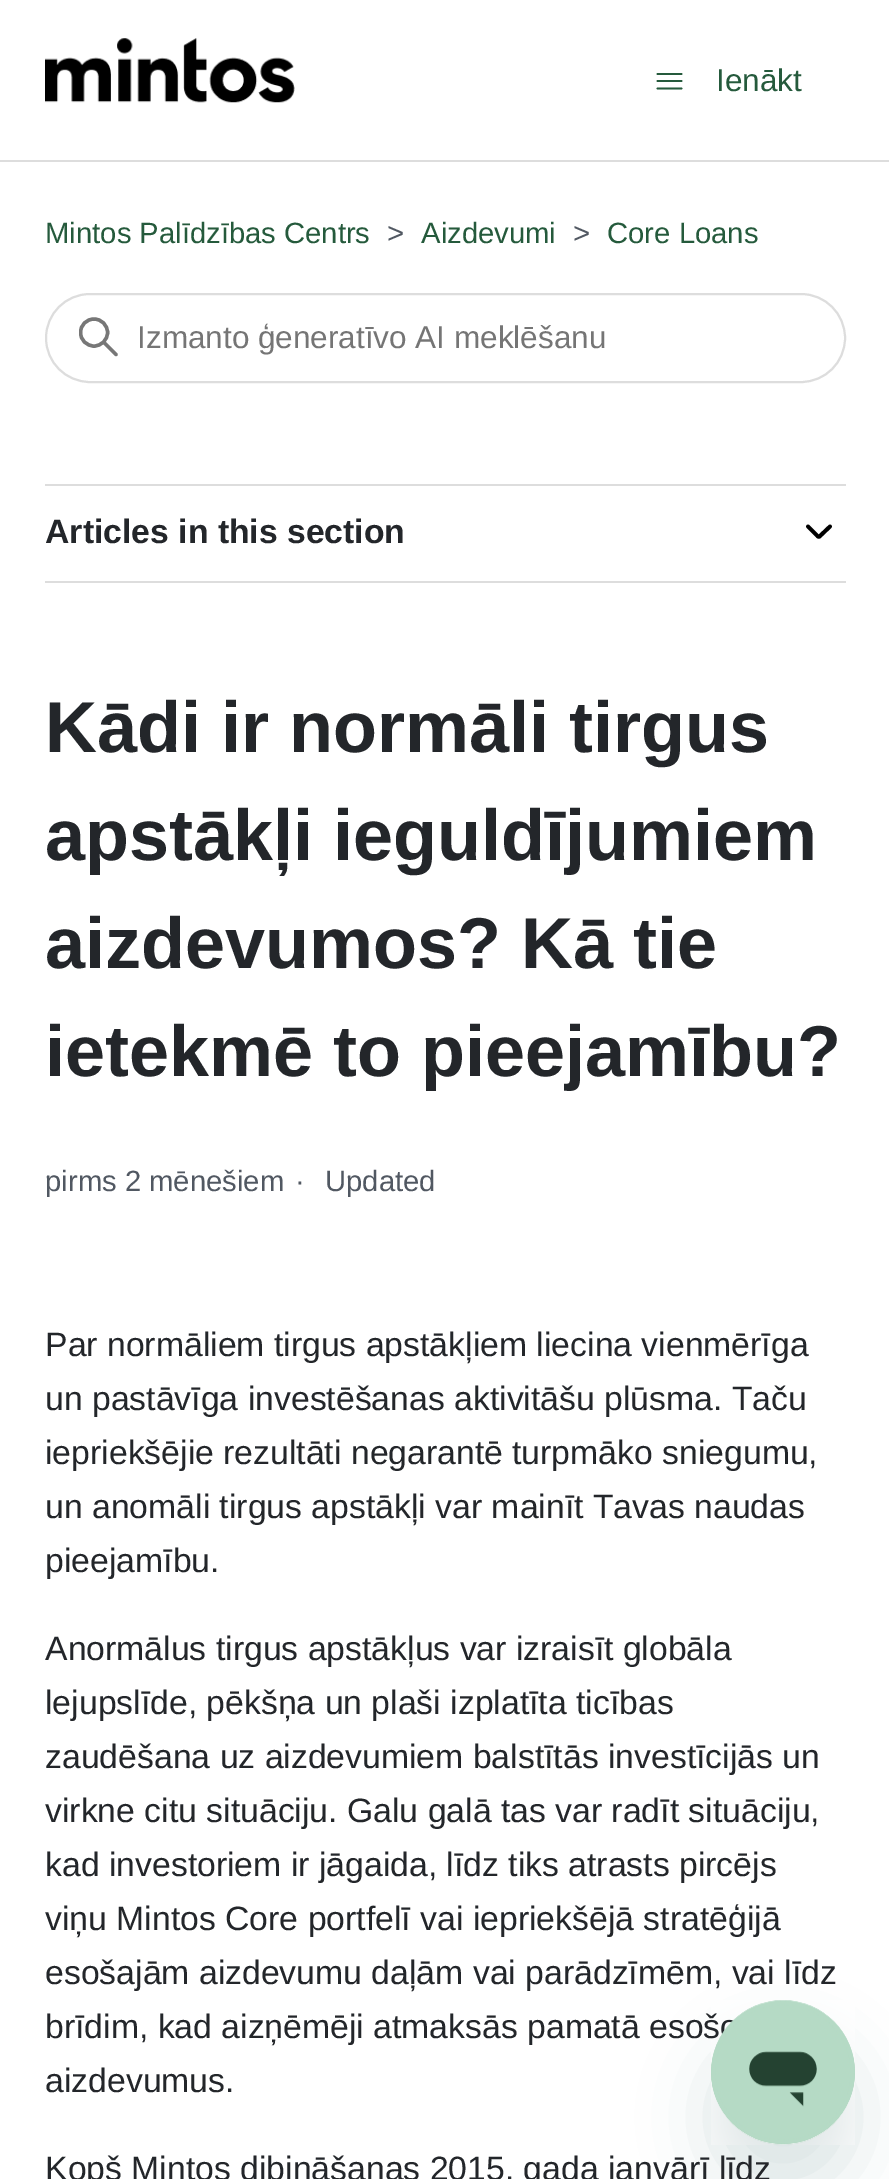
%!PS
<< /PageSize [889 2179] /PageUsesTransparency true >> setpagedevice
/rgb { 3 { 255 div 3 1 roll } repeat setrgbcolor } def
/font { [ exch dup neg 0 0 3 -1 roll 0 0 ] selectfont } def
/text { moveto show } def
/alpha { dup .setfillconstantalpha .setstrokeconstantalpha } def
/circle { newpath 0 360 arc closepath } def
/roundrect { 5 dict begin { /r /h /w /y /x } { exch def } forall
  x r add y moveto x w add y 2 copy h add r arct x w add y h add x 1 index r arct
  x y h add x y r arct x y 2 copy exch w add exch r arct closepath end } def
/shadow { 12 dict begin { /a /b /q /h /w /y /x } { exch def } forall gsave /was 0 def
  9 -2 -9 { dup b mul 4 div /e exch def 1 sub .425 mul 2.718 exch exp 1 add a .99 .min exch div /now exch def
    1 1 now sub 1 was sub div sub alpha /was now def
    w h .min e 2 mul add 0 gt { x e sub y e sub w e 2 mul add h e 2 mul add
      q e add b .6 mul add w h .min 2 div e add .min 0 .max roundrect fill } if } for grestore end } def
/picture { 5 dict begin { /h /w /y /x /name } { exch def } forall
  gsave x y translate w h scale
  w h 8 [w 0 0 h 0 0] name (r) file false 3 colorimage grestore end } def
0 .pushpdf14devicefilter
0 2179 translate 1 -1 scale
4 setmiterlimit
255 255 255 rgb
0 0 889 2179 rectfill
(img_01.rgb) 45 38 250 65 picture
37 90 60 rgb
1.8 setlinewidth
1 setlinecap
657.5 74 moveto 24 0 rlineto 657.5 81 moveto 24 0 rlineto 657.5 88.5 moveto 24 0 rlineto stroke
221 221 221 rgb
0 160 889 2 rectfill
2 setlinewidth
0 setlinecap
46 294 799 88 44 roundrect stroke
gsave
79 317 40 41 rectclip
119 119 119 rgb
3.4 setlinewidth
94 332.5 13.5 circle stroke
grestore
119 119 119 rgb
3.4 setlinewidth
1 setlinecap
116 354.5 moveto -12 -12 rlineto stroke
221 221 221 rgb
45 484 801 2 rectfill
45 581 801 2 rectfill
0 0 0 rgb
3.8 setlinewidth
808 526.5 moveto 9.5 9.5 rlineto 0.5 1 2 1 2.5 0 rcurveto 10 -9.5 rlineto stroke
23 73 77 rgb
711 2045 144 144 72 34 0.15 shadow
/LiberationSans-Regular 31.5 font
37 90 60 rgb
(Ienākt) 716 91 text
/LiberationSans-Regular 29.25 font
(Mintos Palīdzības Centrs) 45 243 text
81 88 98 rgb
(>) 387 243 text
37 90 60 rgb
(Aizdevumi) 421 243 text
81 88 98 rgb
(>) 573 243 text
37 90 60 rgb
(Core Loans) 607 243 text
/LiberationSans-Regular 31.5 font
117 117 117 rgb
(Izmanto ģeneratīvo AI meklēšanu) 137 348 text
/LiberationSans-Bold 33.75 font
35 38 42 rgb
(Articles in this section) 45 543 text
/LiberationSans-Bold 72 font
(Kādi ir normāli tirgus) 45 752 text
(apstākļi ieguldījumiem) 45 860 text
(aizdevumos? Kā tie) 45 968 text
(ietekmē to pieejamību?) 45 1076 text
/LiberationSans-Regular 29.25 font
81 88 98 rgb
(pirms 2 mēnešiem) 45 1191 text
(·) 295 1191 text
(Updated) 325 1191 text
/LiberationSans-Regular 33.75 font
35 38 42 rgb
(Par normāliem tirgus apstākļiem liecina vienmērīga) 45 1356 text
(un pastāvīga investēšanas aktivitāšu plūsma. Taču) 45 1410 text
(iepriekšējie rezultāti negarantē turpmāko sniegumu,) 45 1464 text
(un anomāli tirgus apstākļi var mainīt Tavas naudas) 45 1518 text
(pieejamību.) 45 1572 text
(Anormālus tirgus apstākļus var izraisīt globāla) 45 1660 text
(lejupslīde, pēkšņa un plaši izplatīta ticības) 45 1714 text
(zaudēšana uz aizdevumiem balstītās investīcijās un) 45 1768 text
(virkne citu situāciju. Galu galā tas var radīt situāciju,) 45 1822 text
(kad investoriem ir jāgaida, līdz tiks atrasts pircējs) 45 1876 text
(viņu Mintos Core portfelī vai iepriekšējā stratēģijā) 45 1930 text
(esošajām aizdevumu daļām vai parādzīmēm, vai līdz) 45 1984 text
(brīdim, kad aizņēmēji atmaksās pamatā esoš) 45 2038 text
(aizdevumus.) 45 2092 text
(Kopš Mintos dibināšanas 2015. gada janvārī līdz) 45 2180 text
(img_02.rgb) 711 2000 144 145 picture
.poppdf14devicefilter showpage
